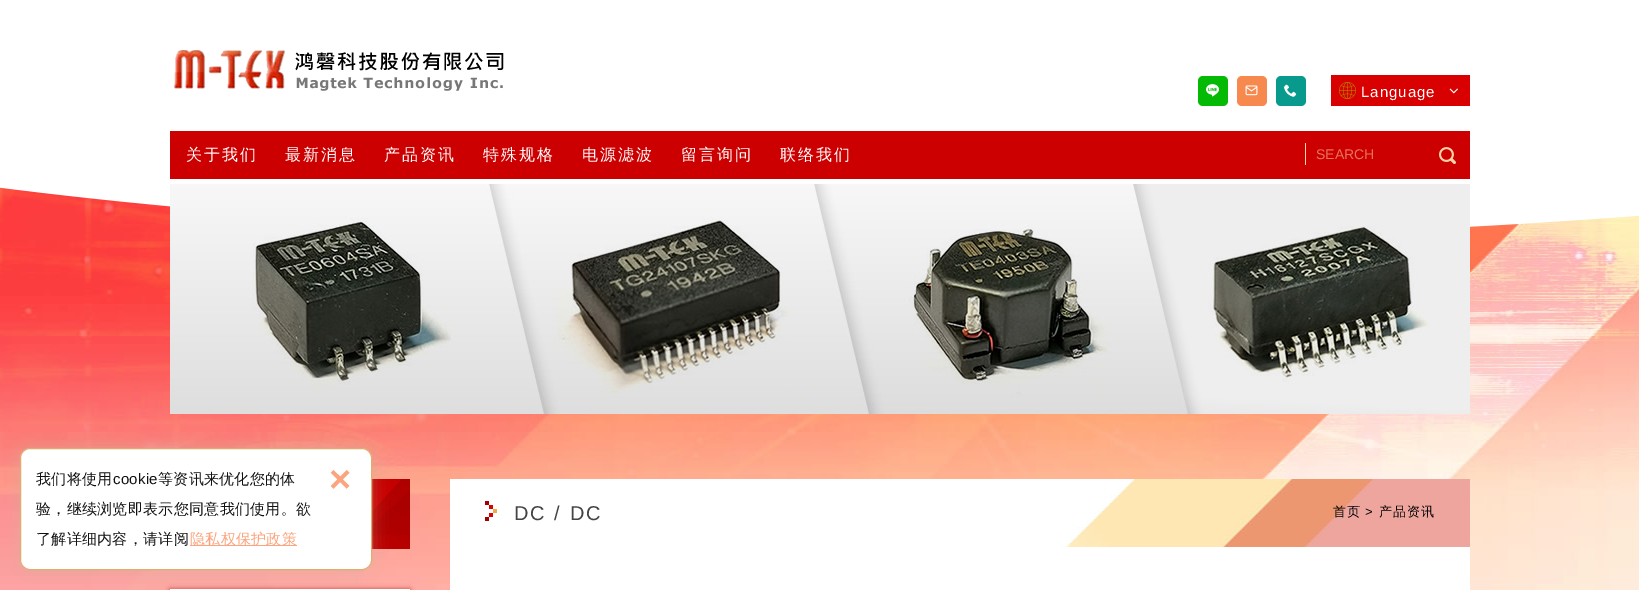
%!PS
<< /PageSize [1639 590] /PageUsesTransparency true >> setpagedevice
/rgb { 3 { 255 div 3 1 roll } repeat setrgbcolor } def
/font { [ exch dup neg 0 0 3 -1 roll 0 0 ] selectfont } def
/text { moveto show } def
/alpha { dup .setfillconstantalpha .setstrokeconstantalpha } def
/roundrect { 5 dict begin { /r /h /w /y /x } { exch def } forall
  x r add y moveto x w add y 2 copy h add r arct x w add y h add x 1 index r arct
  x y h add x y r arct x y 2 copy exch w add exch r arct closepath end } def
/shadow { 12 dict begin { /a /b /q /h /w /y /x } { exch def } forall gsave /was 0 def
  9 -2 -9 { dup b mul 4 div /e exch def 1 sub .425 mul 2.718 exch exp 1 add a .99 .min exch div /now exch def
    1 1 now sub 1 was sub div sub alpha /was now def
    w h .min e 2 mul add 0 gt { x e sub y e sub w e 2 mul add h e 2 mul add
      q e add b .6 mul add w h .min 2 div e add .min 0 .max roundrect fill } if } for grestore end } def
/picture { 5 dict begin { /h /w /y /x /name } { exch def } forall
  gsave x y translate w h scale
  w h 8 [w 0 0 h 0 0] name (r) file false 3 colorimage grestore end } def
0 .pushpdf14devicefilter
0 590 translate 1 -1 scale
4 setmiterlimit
255 255 255 rgb
0 0 1639 590 rectfill
(img_01.rgb) 0 187 1639 403 picture
(img_02.rgb) 0 0 1639 227 picture
(img_03.rgb) 174 50 330 41 picture
4 186 4 rgb
1198 76 30 30 5 roundrect fill
(img_04.rgb) 1206 84 13 13 picture
247 137 79 rgb
1237 76 30 30 5 roundrect fill
(img_05.rgb) 1245 85 13 11 picture
8 154 141 rgb
1276 76 30 30 5 roundrect fill
(img_06.rgb) 1284 84 13 13 picture
216 0 0 rgb
1331 75 139 31 rectfill
(img_07.rgb) 1339 82 17 17 picture
(img_08.rgb) 1449 88 9 6 picture
204 0 0 rgb
170 131 1300 48 rectfill
255 211 168 rgb
1305 143 1 22 rectfill
(img_09.rgb) 1439 147 17 17 picture
(img_11.rgb) 372 479 38 70 picture
167 0 0 rgb
170 589 240 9 0 2.5 0.6 shadow
255 255 255 rgb
170 589 240 1 rectfill
205 184 156 rgb
20 448 352 122 10 7.5 0.4 shadow
255 255 255 rgb
20.5 448.5 351 121 9.5 roundrect gsave fill grestore
225 172 113 rgb
stroke
251 164 125 rgb
190 545 107 1 rectfill
(img_10.rgb) 170 184 1300 230 picture
255 255 255 rgb
450 479 1020 111 rectfill
(img_12.rgb) 1062 479 408 68 picture
(img_13.rgb) 485 501 12 20 picture
/LiberationSans-Regular 15 font
1361 97 moveto 1 0 (Language) ashow
/WenQuanYiZenHei-Medium 16 font
186 160 moveto 2 0 (关于我们) ashow
285 160 moveto 2 0 (最新消息) ashow
384 160 moveto 2 0 (产品资讯) ashow
483 160 moveto 2 0 (特殊规格) ashow
582 160 moveto 2 0 (电源滤波) ashow
681 160 moveto 2 0 (留言询问) ashow
780 160 moveto 2 0 (联络我们) ashow
/LiberationSans-Regular 14 font
232 114 91 rgb
(SEARCH) 1316 159 text
/WenQuanYiZenHei-Medium 15 font
17 17 17 rgb
36 484 moveto 0.3 0 (我们将使用) ashow
/LiberationSans-Regular 15 font
113 484 moveto 0.3 0 (cookie) ashow
/WenQuanYiZenHei-Medium 15 font
158 484 moveto 0.3 0 (等资讯来优化您的体) ashow
36 514 moveto 0.3 0 (验，继续浏览即表示您同意我们使用。欲) ashow
36 544 moveto 0.3 0 (了解详细内容，请详阅) ashow
251 164 125 rgb
190 544 moveto 0.3 0 (隐私权保护政策) ashow
/LiberationSans-Bold 38 font
(×) 329 492 text
/LiberationSans-Regular 20 font
68 68 68 rgb
514 520 moveto 2 0 (DC / DC) ashow
/WenQuanYiZenHei-Medium 13 font
0 0 0 rgb
1333 516 moveto 1 0 (首页) ashow
/LiberationSans-Regular 13 font
1365 516 moveto 1 0 (>) ashow
/WenQuanYiZenHei-Medium 13 font
1379 516 moveto 1 0 (产品资讯) ashow
.poppdf14devicefilter showpage
